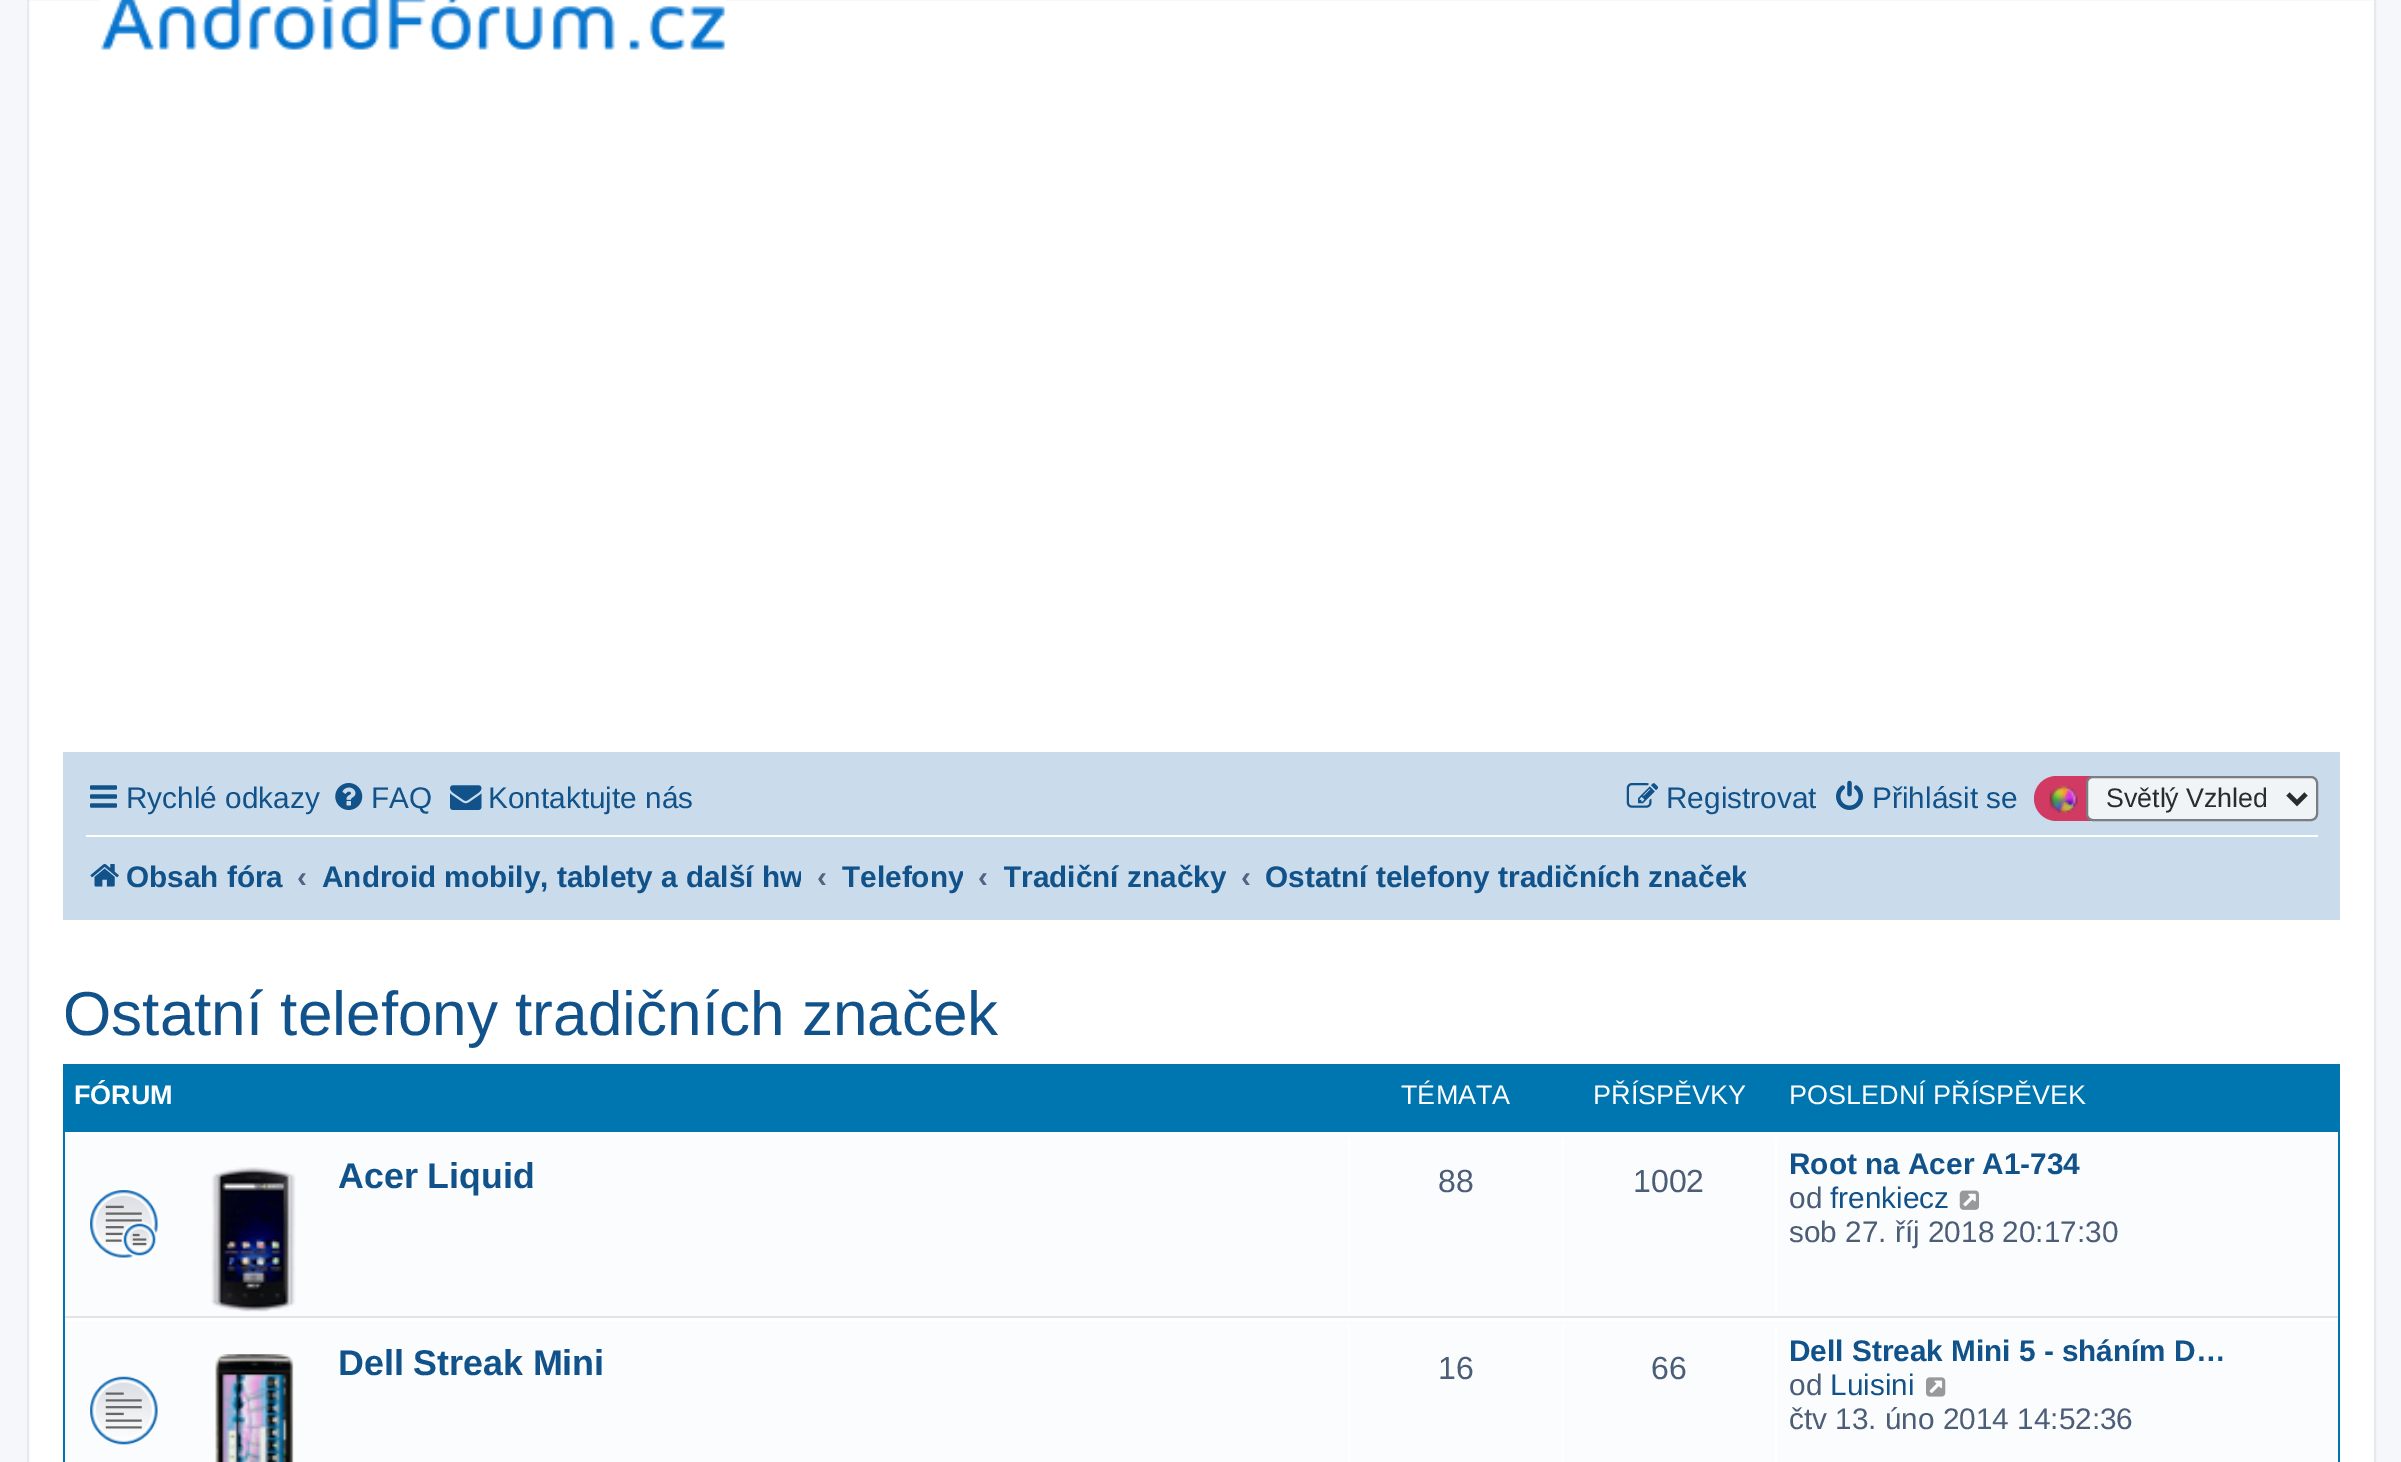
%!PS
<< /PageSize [2401 1462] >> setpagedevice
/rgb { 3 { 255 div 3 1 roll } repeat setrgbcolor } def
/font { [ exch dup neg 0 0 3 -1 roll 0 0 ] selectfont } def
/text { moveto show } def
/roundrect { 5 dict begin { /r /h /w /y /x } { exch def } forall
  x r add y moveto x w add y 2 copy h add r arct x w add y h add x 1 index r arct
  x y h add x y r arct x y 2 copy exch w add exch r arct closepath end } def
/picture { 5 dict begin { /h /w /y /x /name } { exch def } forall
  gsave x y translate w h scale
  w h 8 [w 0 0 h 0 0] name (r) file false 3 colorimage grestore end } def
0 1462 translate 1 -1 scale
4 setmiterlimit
245 247 250 rgb
0 0 2401 1462 rectfill
255 255 255 rgb
28 -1 moveto 2347 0 rlineto 0 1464 rlineto -2347 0 rlineto closepath gsave fill grestore
230 233 237 rgb
2 setlinewidth
stroke
(img_01.rgb) 100 0 626 50 picture
202 220 235 rgb
63 752 2277 168 rectfill
(img_02.rgb) 90 785 27 23 picture
(img_03.rgb) 335 783 28 27 picture
(img_04.rgb) 450 785 32 25 picture
(img_05.rgb) 1626 783 33 25 picture
(img_06.rgb) 1836 780 27 30 picture
209 58 99 rgb
2034 776 284 45 22.5 roundrect fill
(img_07.rgb) 2049 785 29 29 picture
240 244 247 rgb
2087 777 230 43 6 roundrect gsave fill grestore
122 126 129 rgb
stroke
40 44 47 rgb
4.5 setlinewidth
2288 794 moveto 9 9 rlineto 9 -9 rlineto stroke
255 255 255 rgb
86 835 2232 2 rectfill
(img_08.rgb) 90 864 29 23 picture
0 118 177 rgb
63 1064 2277 398 rectfill
251 252 253 rgb
65 1134 2273 328 rectfill
255 255 255 rgb
65 1132 2273 2 rectfill
228 228 228 rgb
65 1316 2273 2 rectfill
(img_09.rgb) 90 1190 68 68 picture
(img_10.rgb) 211 1167 85 145 picture
255 255 255 rgb
1348 1139 2 173 rectfill
1562 1139 2 173 rectfill
1775 1139 2 173 rectfill
(img_11.rgb) 1959 1190 20 20 picture
65 1319 2273 2 rectfill
(img_12.rgb) 90 1376 68 69 picture
(img_13.rgb) 215 1354 79 108 picture
1348 1325 2 137 rectfill
1562 1325 2 137 rectfill
1775 1325 2 137 rectfill
(img_14.rgb) 1926 1377 20 20 picture
/LiberationSans-Regular 29.75 font
16 82 137 rgb
(Rychlé odkazy) 126 808 text
(FAQ) 371 808 text
(Kontaktujte nás) 488 808 text
(Registrovat) 1666 808 text
(Přihlásit se) 1872 808 text
/LiberationSans-Regular 26.75 font
40 44 47 rgb
(Světlý Vzhled) 2106 807 text
/LiberationSans-Bold 29.75 font
16 82 137 rgb
(Obsah fóra) 126 887 text
83 100 130 rgb
(‹) 297 887 text
gsave
322 844 479 65 rectclip
16 82 137 rgb
(Android mobily, tablety a další hw) 322 887 text
grestore
(‹) 817 887 text
gsave
842 844 121 65 rectclip
16 82 137 rgb
(Telefony) 842 887 text
grestore
(‹) 978 887 text
gsave
1004 844 222 65 rectclip
16 82 137 rgb
(Tradiční značky) 1003 887 text
grestore
(‹) 1241 887 text
gsave
1265 844 481 65 rectclip
16 82 137 rgb
(Ostatní telefony tradičních značek) 1265 887 text
grestore
/LiberationSans-Regular 62.1 font
16 82 137 rgb
(Ostatní telefony tradičních značek) 63 1035 text
/LiberationSans-Bold 27 font
255 255 255 rgb
(FÓRUM) 74 1104 text
/LiberationSans-Regular 27 font
(TÉMATA) 1401 1104 text
(PŘÍSPĚVKY) 1593 1104 text
(POSLEDNÍ PŘÍSPĚVEK) 1789 1104 text
/LiberationSans-Bold 35.75 font
16 82 137 rgb
(Acer Liquid) 338 1188 text
/LiberationSans-Regular 32 font
76 93 119 rgb
(88) 1438 1192 text
(1002) 1633 1192 text
/LiberationSans-Bold 29.75 font
16 82 137 rgb
(Root na Acer A1-734) 1789 1174 text
/LiberationSans-Regular 29.75 font
76 93 119 rgb
(od) 1789 1208 text
16 82 137 rgb
(frenkiecz) 1830 1208 text
76 93 119 rgb
(sob 27. říj 2018 20:17:30) 1789 1242 text
/LiberationSans-Bold 35.75 font
16 82 137 rgb
(Dell Streak Mini) 338 1375 text
/LiberationSans-Regular 32 font
76 93 119 rgb
(16) 1438 1379 text
(66) 1651 1379 text
/LiberationSans-Bold 29.75 font
16 82 137 rgb
(Dell Streak Mini 5 - sháním D…) 1789 1361 text
/LiberationSans-Regular 29.75 font
76 93 119 rgb
(od) 1789 1395 text
16 82 137 rgb
(Luisini) 1830 1395 text
76 93 119 rgb
(čtv 13. úno 2014 14:52:36) 1789 1429 text
showpage
